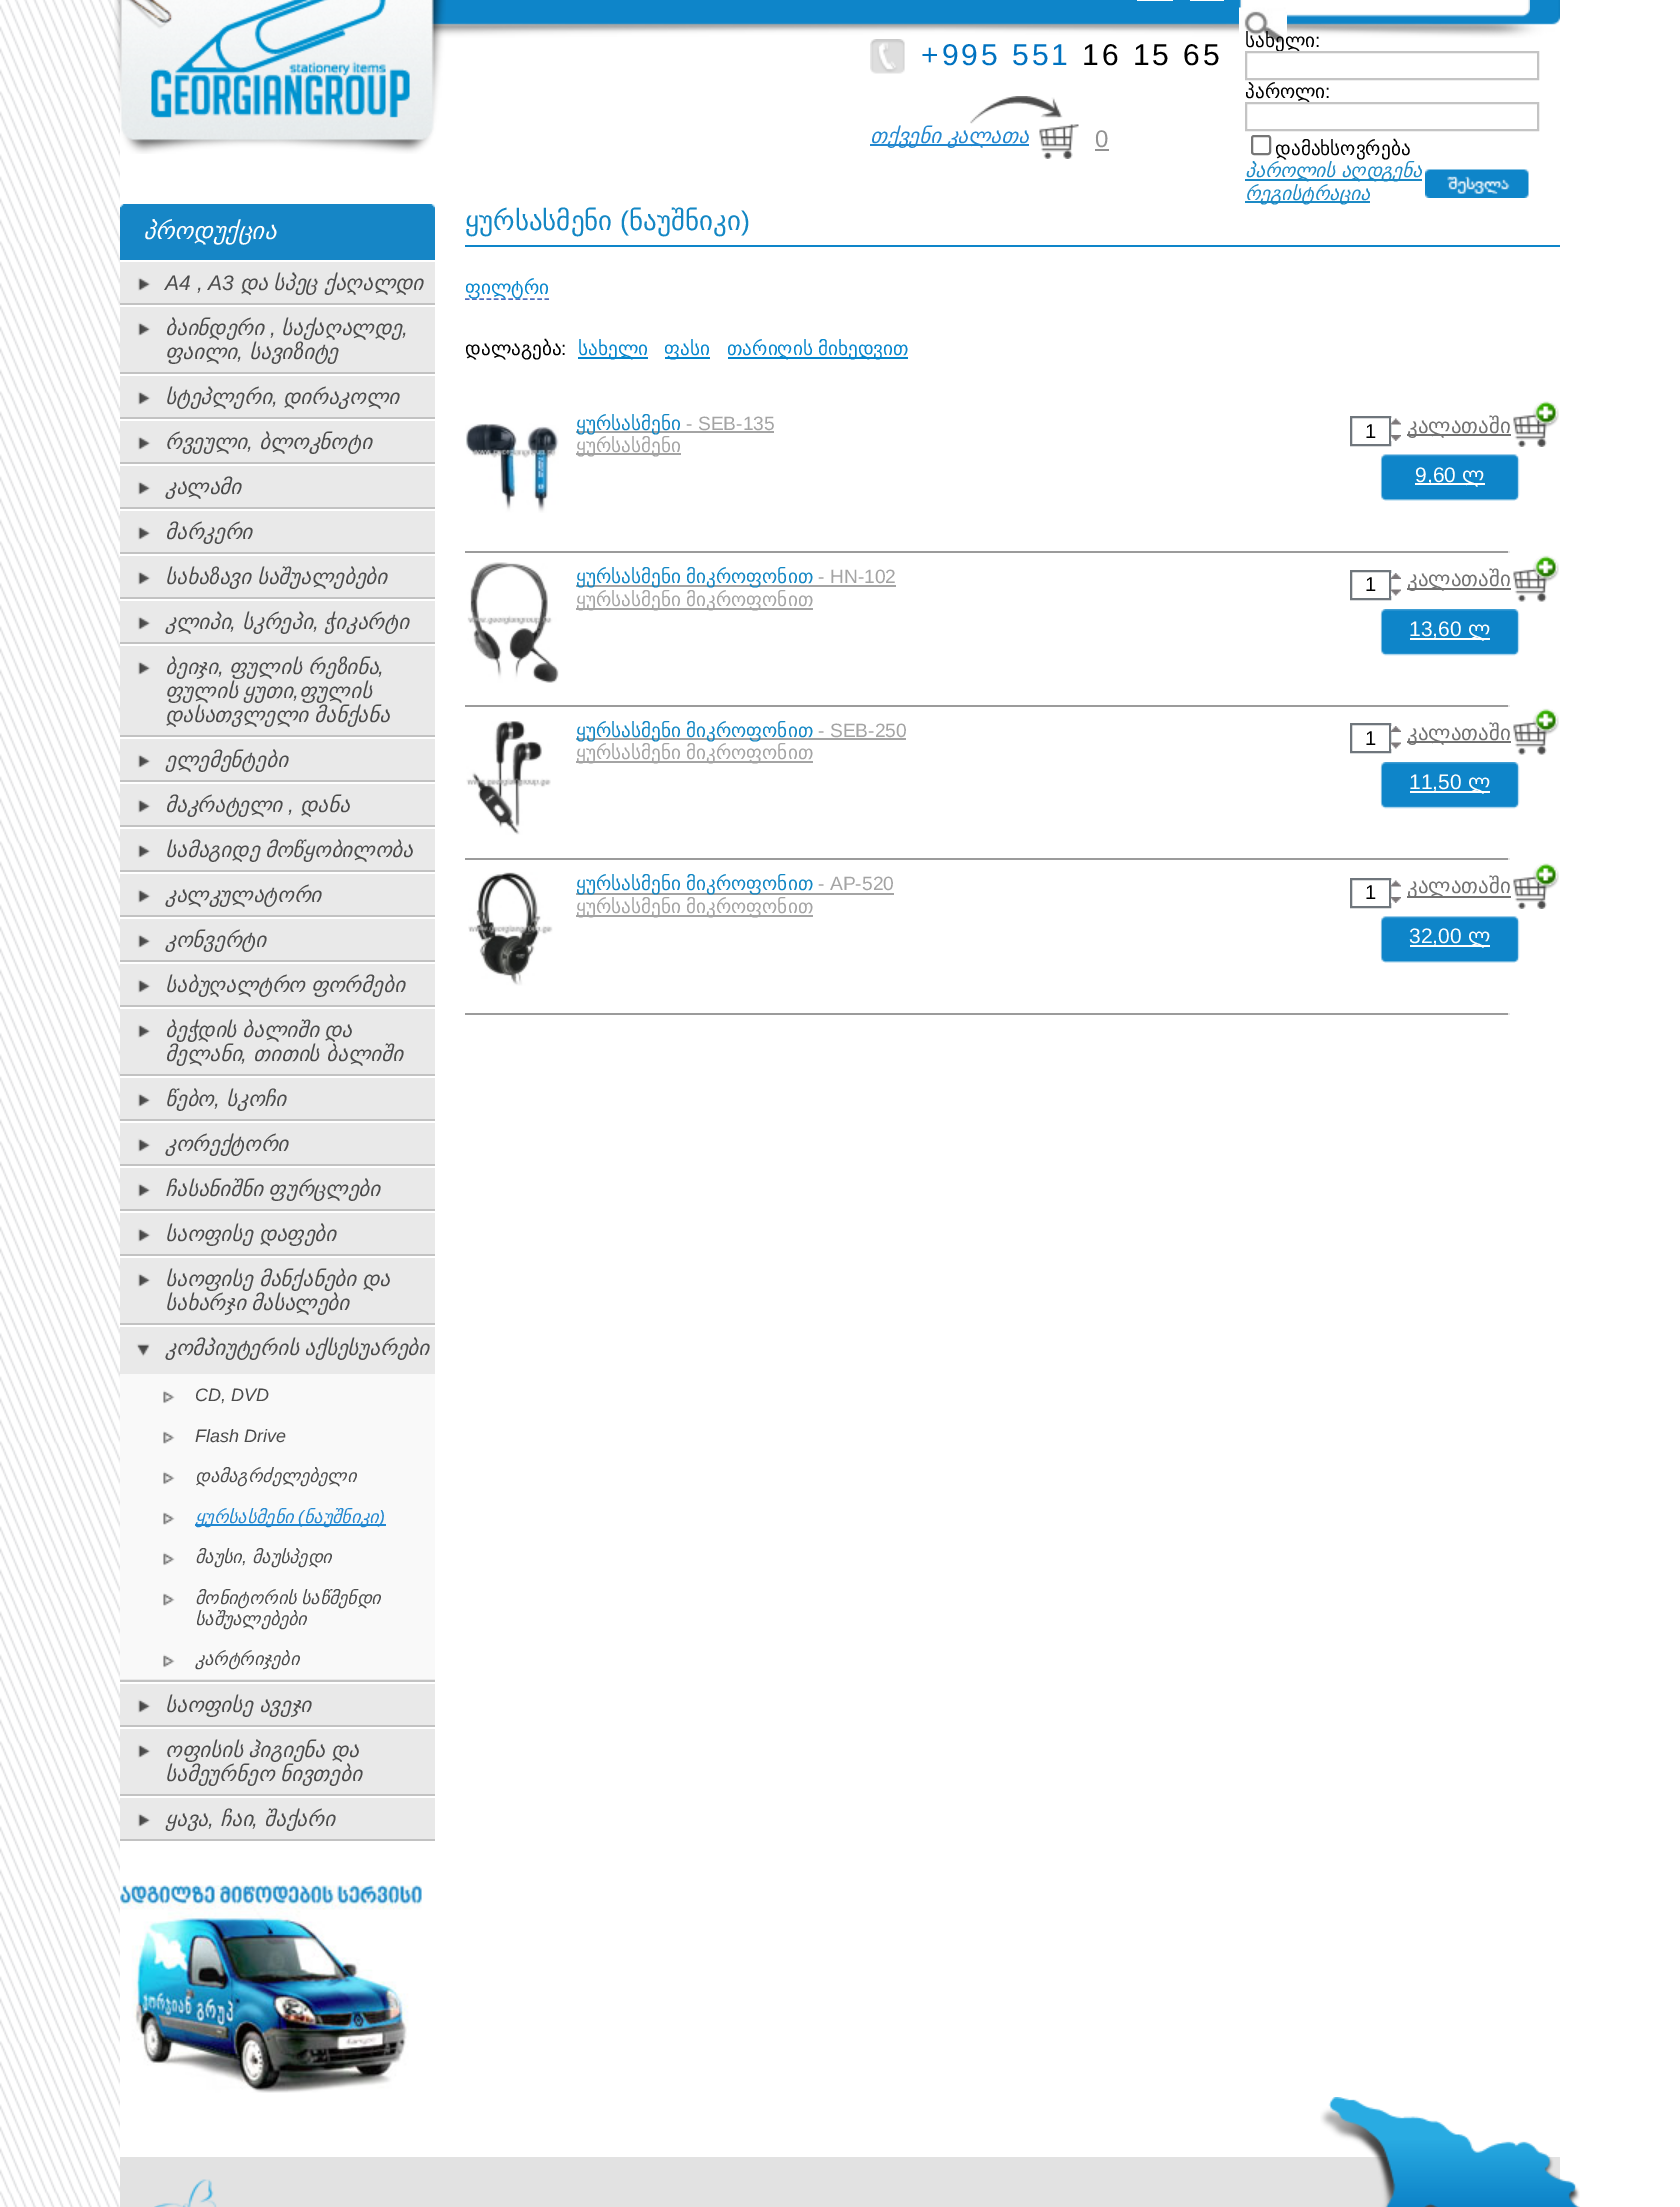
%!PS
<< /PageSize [1680 2207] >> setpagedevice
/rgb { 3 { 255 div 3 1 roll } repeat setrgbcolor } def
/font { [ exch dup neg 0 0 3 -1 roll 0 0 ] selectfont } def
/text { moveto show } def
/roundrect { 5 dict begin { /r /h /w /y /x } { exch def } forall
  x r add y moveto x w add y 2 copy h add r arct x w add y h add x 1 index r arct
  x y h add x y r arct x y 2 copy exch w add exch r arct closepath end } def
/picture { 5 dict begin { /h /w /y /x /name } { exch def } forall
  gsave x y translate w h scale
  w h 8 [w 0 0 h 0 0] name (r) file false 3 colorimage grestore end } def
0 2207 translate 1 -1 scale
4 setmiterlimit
255 255 255 rgb
0 0 1680 2207 rectfill
(img_01.rgb) 0 0 120 2207 picture
(img_02.rgb) 431 0 1129 38 picture
(img_03.rgb) 114 0 332 154 picture
1137 0 36 1 rectfill
1190 0 34 1 rectfill
(img_04.rgb) 1239 0 291 17 picture
(img_05.rgb) 1239 7 48 36 picture
(img_06.rgb) 870 39 35 35 picture
(img_07.rgb) 970 96 109 63 picture
35 136 208 rgb
870 144 159 2 rectfill
146 146 146 rgb
1095 149 14 2 rectfill
118 118 118 rgb
2 setlinewidth
1252 136 18 18 2 roundrect stroke
29 138 197 rgb
1245 179 177 2 rectfill
1245 201 125 2 rectfill
(img_08.rgb) 1425 169 104 29 picture
22 134 198 rgb
120 209 315 51 rectfill
(img_09.rgb) 120 204 315 5 picture
233 233 233 rgb
120 262 315 41 rectfill
(img_10.rgb) 137 277 14 14 picture
194 194 194 rgb
120 303 315 2 rectfill
233 233 233 rgb
120 307 315 65 rectfill
(img_10.rgb) 137 322 14 14 picture
194 194 194 rgb
120 372 315 2 rectfill
233 233 233 rgb
120 376 315 41 rectfill
(img_10.rgb) 137 391 14 14 picture
194 194 194 rgb
120 417 315 2 rectfill
233 233 233 rgb
120 421 315 41 rectfill
(img_10.rgb) 137 436 14 14 picture
194 194 194 rgb
120 462 315 2 rectfill
233 233 233 rgb
120 466 315 41 rectfill
(img_10.rgb) 137 481 14 14 picture
194 194 194 rgb
120 507 315 2 rectfill
233 233 233 rgb
120 511 315 41 rectfill
(img_10.rgb) 137 526 14 14 picture
194 194 194 rgb
120 552 315 2 rectfill
233 233 233 rgb
120 556 315 41 rectfill
(img_10.rgb) 137 571 14 14 picture
194 194 194 rgb
120 597 315 2 rectfill
233 233 233 rgb
120 601 315 41 rectfill
(img_10.rgb) 137 616 14 14 picture
194 194 194 rgb
120 642 315 2 rectfill
233 233 233 rgb
120 646 315 89 rectfill
(img_10.rgb) 137 661 14 14 picture
194 194 194 rgb
120 735 315 2 rectfill
233 233 233 rgb
120 739 315 41 rectfill
(img_10.rgb) 137 754 14 14 picture
194 194 194 rgb
120 780 315 2 rectfill
233 233 233 rgb
120 784 315 41 rectfill
(img_10.rgb) 137 799 14 14 picture
194 194 194 rgb
120 825 315 2 rectfill
233 233 233 rgb
120 829 315 41 rectfill
(img_10.rgb) 137 844 14 14 picture
194 194 194 rgb
120 870 315 2 rectfill
233 233 233 rgb
120 874 315 41 rectfill
(img_10.rgb) 137 889 14 14 picture
194 194 194 rgb
120 915 315 2 rectfill
233 233 233 rgb
120 919 315 41 rectfill
(img_10.rgb) 137 934 14 14 picture
194 194 194 rgb
120 960 315 2 rectfill
233 233 233 rgb
120 964 315 41 rectfill
(img_10.rgb) 137 979 14 14 picture
194 194 194 rgb
120 1005 315 2 rectfill
233 233 233 rgb
120 1009 315 65 rectfill
(img_10.rgb) 137 1024 14 14 picture
194 194 194 rgb
120 1074 315 2 rectfill
233 233 233 rgb
120 1078 315 41 rectfill
(img_10.rgb) 137 1093 14 14 picture
194 194 194 rgb
120 1119 315 2 rectfill
233 233 233 rgb
120 1123 315 41 rectfill
(img_10.rgb) 137 1138 14 14 picture
194 194 194 rgb
120 1164 315 2 rectfill
233 233 233 rgb
120 1168 315 41 rectfill
(img_10.rgb) 137 1183 14 14 picture
194 194 194 rgb
120 1209 315 2 rectfill
233 233 233 rgb
120 1213 315 41 rectfill
(img_10.rgb) 137 1228 14 14 picture
194 194 194 rgb
120 1254 315 2 rectfill
233 233 233 rgb
120 1258 315 65 rectfill
(img_10.rgb) 137 1273 14 14 picture
194 194 194 rgb
120 1323 315 2 rectfill
233 233 233 rgb
120 1327 315 353 rectfill
(img_11.rgb) 136 1343 14 14 picture
194 194 194 rgb
120 1680 315 2 rectfill
249 249 249 rgb
120 1374 315 305 rectfill
(img_12.rgb) 163 1390 12 14 picture
(img_13.rgb) 163 1431 12 13 picture
(img_12.rgb) 163 1471 12 14 picture
(img_13.rgb) 163 1512 12 13 picture
32 135 210 rgb
195 1524 191 2 rectfill
(img_12.rgb) 163 1552 12 14 picture
(img_13.rgb) 163 1593 12 13 picture
(img_12.rgb) 163 1654 12 14 picture
233 233 233 rgb
120 1684 315 41 rectfill
(img_10.rgb) 137 1699 14 14 picture
194 194 194 rgb
120 1725 315 2 rectfill
233 233 233 rgb
120 1729 315 65 rectfill
(img_10.rgb) 137 1744 14 14 picture
194 194 194 rgb
120 1794 315 2 rectfill
233 233 233 rgb
120 1798 315 41 rectfill
(img_10.rgb) 137 1813 14 14 picture
194 194 194 rgb
120 1839 315 2 rectfill
(img_14.rgb) 120 1885 302 208 picture
14 133 201 rgb
465 245 1095 2 rectfill
80 108 188 rgb
1.5 setlinewidth
[4.5 2.73] 0 setdash
465 299 moveto 84 0 rlineto stroke
6 134 205 rgb
578 357 70 2 rectfill
665 357 45 2 rectfill
728 357 180 2 rectfill
(img_15.rgb) 465 423 94 90 picture
164 164 164 rgb
576 431 198 2 rectfill
576 453 105 2 rectfill
111 118 124 rgb
2 setlinewidth
[] 0 setdash
1351 417 39 28 rectstroke
(img_16.rgb) 1390 418 11 7 picture
(img_17.rgb) 1390 435 11 6 picture
114 114 114 rgb
1407 434 104 2 rectfill
(img_18.rgb) 1513 401 46 46 picture
(img_19.rgb) 1380 454 140 47 picture
255 255 255 rgb
1415 483 70 2 rectfill
155 155 155 rgb
465 551 1044 2 rectfill
233 233 233 rgb
1508 551 2 2 rectfill
(img_20.rgb) 467 562 92 121 picture
164 164 164 rgb
576 585 320 2 rectfill
576 608 237 2 rectfill
111 118 124 rgb
1351 571 39 28 rectstroke
(img_21.rgb) 1390 573 11 6 picture
(img_22.rgb) 1390 589 11 7 picture
114 114 114 rgb
1407 588 104 2 rectfill
(img_23.rgb) 1513 555 46 47 picture
(img_24.rgb) 1380 609 140 47 picture
255 255 255 rgb
1410 638 80 2 rectfill
155 155 155 rgb
465 705 1044 2 rectfill
233 233 233 rgb
1508 705 2 2 rectfill
(img_25.rgb) 466 721 85 114 picture
164 164 164 rgb
576 738 330 2 rectfill
576 761 237 2 rectfill
111 118 124 rgb
1351 724 39 28 rectstroke
(img_21.rgb) 1390 726 11 6 picture
(img_22.rgb) 1390 742 11 7 picture
114 114 114 rgb
1407 741 104 2 rectfill
(img_23.rgb) 1513 708 46 47 picture
(img_24.rgb) 1380 762 140 47 picture
255 255 255 rgb
1410 791 80 2 rectfill
155 155 155 rgb
465 858 1044 2 rectfill
233 233 233 rgb
1508 858 2 2 rectfill
(img_26.rgb) 468 872 85 114 picture
164 164 164 rgb
576 893 318 2 rectfill
576 915 237 2 rectfill
111 118 124 rgb
1351 879 39 28 rectstroke
(img_16.rgb) 1390 880 11 7 picture
(img_17.rgb) 1390 897 11 6 picture
114 114 114 rgb
1407 896 104 2 rectfill
(img_18.rgb) 1513 863 46 46 picture
(img_19.rgb) 1380 916 140 47 picture
255 255 255 rgb
1410 945 80 2 rectfill
155 155 155 rgb
465 1013 1044 2 rectfill
233 233 233 rgb
1508 1013 2 2 rectfill
226 226 226 rgb
120 2157 1440 50 rectfill
(img_27.rgb) 154 2179 63 28 picture
(img_28.rgb) 1320 2097 260 110 picture
/LiberationSans-Regular 30 font
0 114 192 rgb
921 65 moveto 3 0 (+995 551) ashow
0 0 0 rgb
1082 65 moveto 3 0 (16 15 65) ashow
/DejaVuSans-Italic 21 font
35 136 208 rgb
870 143 moveto -1 0 32 (თქვენი კალათა) widthshow
/LiberationSans-Regular 24 font
146 146 146 rgb
(0) 1095 147 text
/DejaVuSans-Regular 19.25 font
0 0 0 rgb
(სახელი) 1245 47 text
/LiberationSans-Regular 19.25 font
(:) 1315 47 text
196 196 196 rgb
1246 52 292 27 rectstroke
/DejaVuSans-Regular 19.25 font
0 0 0 rgb
(პაროლი) 1245 98 text
/LiberationSans-Regular 19.25 font
(:) 1325 98 text
196 196 196 rgb
1246 103 292 27 rectstroke
/DejaVuSans-Regular 19.25 font
0 0 0 rgb
(დამახსოვრება) 1275 155 text
/DejaVuSans-Italic 19.25 font
29 138 197 rgb
1245 177 moveto -1 0 32 (პაროლის აღდგენა) widthshow
(რეგისტრაცია) 1245 200 text
/DejaVuSans-Italic 24 font
255 255 255 rgb
(პროდუქცია) 143 239 text
/LiberationSans-Italic 21 font
76 76 76 rgb
(A4 , A3) 165 290 text
/DejaVuSans-Italic 21 font
(და) 240 290 text
(სპეც) 273 290 text
(ქაღალდი) 324 290 text
(ბაინდერი) 165 335 text
/LiberationSans-Italic 21 font
(,) 270 335 text
/DejaVuSans-Italic 21 font
(საქაღალდე) 281 335 text
/LiberationSans-Italic 21 font
(,) 402 335 text
/DejaVuSans-Italic 21 font
(ფაილი) 165 359 text
/LiberationSans-Italic 21 font
(,) 237 359 text
/DejaVuSans-Italic 21 font
(სავიზიტე) 249 359 text
(სტეპლერი) 165 404 text
/LiberationSans-Italic 21 font
(,) 272 404 text
/DejaVuSans-Italic 21 font
(დირაკოლი) 283 404 text
(რვეული) 165 449 text
(ბლოკნოტი) 259 449 text
/LiberationSans-Italic 21 font
(,) 247 449 text
/DejaVuSans-Italic 21 font
(კალამი) 165 494 text
(მარკერი) 165 539 text
165 584 moveto -1 0 32 (სახაზავი საშუალებები) widthshow
(კლიპი) 165 629 text
(სკრეპი) 242 629 text
(ჭიკარტი) 324 629 text
/LiberationSans-Italic 21 font
(,) 230 629 text
(,) 313 629 text
/DejaVuSans-Italic 21 font
(ბეიჯი) 165 674 text
/LiberationSans-Italic 21 font
(,) 218 674 text
/DejaVuSans-Italic 21 font
(ფულის რეზინა) 229 674 text
/LiberationSans-Italic 21 font
(,) 378 674 text
/DejaVuSans-Italic 21 font
165 698 moveto -1 0 32 (ფულის ყუთი) widthshow
/LiberationSans-Italic 21 font
(,) 293 698 text
/DejaVuSans-Italic 21 font
(ფულის) 299 698 text
165 722 moveto -1 0 32 (დასათვლელი მანქანა) widthshow
(ელემენტები) 165 767 text
(მაკრატელი) 165 812 text
/LiberationSans-Italic 21 font
(,) 288 812 text
/DejaVuSans-Italic 21 font
(დანა) 300 812 text
165 857 moveto -1 0 32 (სამაგიდე მოწყობილობა) widthshow
(კალკულატორი) 165 902 text
(კონვერტი) 165 947 text
165 992 moveto -1 0 32 (საბუღალტრო ფორმები) widthshow
165 1037 moveto -1 0 32 (ბეჭდის ბალიში და) widthshow
(მელანი) 165 1061 text
(თითის ბალიში) 253 1061 text
/LiberationSans-Italic 21 font
(,) 241 1061 text
/DejaVuSans-Italic 21 font
(წებო) 165 1106 text
/LiberationSans-Italic 21 font
(,) 214 1106 text
/DejaVuSans-Italic 21 font
(სკოჩი) 226 1106 text
(კორექტორი) 165 1151 text
165 1196 moveto -1 0 32 (ჩასანიშნი ფურცლები) widthshow
165 1241 moveto -1 0 32 (საოფისე დაფები) widthshow
165 1286 moveto -1 0 32 (საოფისე მანქანები და) widthshow
165 1310 moveto -1 0 32 (სახარჯი მასალები) widthshow
165 1355 moveto -1 0 32 (კომპიუტერის აქსესუარები) widthshow
/LiberationSans-Italic 18 font
(CD, DVD) 195 1401 text
(Flash Drive) 195 1442 text
/DejaVuSans-Italic 18 font
(დამაგრძელებელი) 195 1482 text
35 136 208 rgb
(ყურსასმენი) 195 1523 text
/LiberationSans-Italic 18 font
(\() 298 1523 text
/DejaVuSans-Italic 18 font
(ნაუშნიკი) 304 1523 text
/LiberationSans-Italic 18 font
(\)) 379 1523 text
/DejaVuSans-Italic 18 font
76 76 76 rgb
(მაუსი) 195 1563 text
/LiberationSans-Italic 18 font
(,) 242 1563 text
/DejaVuSans-Italic 18 font
(მაუსპედი) 252 1563 text
195 1604 moveto -1 0 32 (მონიტორის საწმენდი) widthshow
(საშუალებები) 195 1625 text
(კარტრიჯები) 195 1665 text
/DejaVuSans-Italic 21 font
165 1712 moveto -1 0 32 (საოფისე ავეჯი) widthshow
165 1757 moveto -1 0 32 (ოფისის ჰიგიენა და) widthshow
165 1781 moveto -1 0 32 (სამეურნეო ნივთები) widthshow
(ყავა) 165 1826 text
/LiberationSans-Italic 21 font
(,) 208 1826 text
/DejaVuSans-Italic 21 font
(ჩაი) 220 1826 text
/LiberationSans-Italic 21 font
(,) 252 1826 text
/DejaVuSans-Italic 21 font
(შაქარი) 264 1826 text
/DejaVuSans-Regular 27 font
19 135 196 rgb
(ყურსასმენი) 465 230 text
/LiberationSans-Regular 27 font
(\() 620 230 text
/DejaVuSans-Regular 27 font
(ნაუშნიკი) 629 230 text
/LiberationSans-Regular 27 font
(\)) 741 230 text
/DejaVuSans-Regular 19.25 font
6 134 205 rgb
(ფილტრი) 465 294 text
0 0 0 rgb
(დალაგება) 465 355 text
/LiberationSans-Regular 19.25 font
(:) 561 355 text
/DejaVuSans-Regular 19.25 font
6 134 205 rgb
(სახელი) 578 355 text
(ფასი) 664 355 text
727 355 moveto -1 0 32 (თარიღის მიხედვით) widthshow
19 135 196 rgb
(ყურსასმენი) 576 430 text
/LiberationSans-Regular 19.25 font
164 164 164 rgb
(- SEB-135) 686 430 text
/DejaVuSans-Regular 19.25 font
(ყურსასმენი) 576 452 text
/LiberationSans-Regular 20 font
0 0 0 rgb
(1) 1365 438 text
/DejaVuSans-Regular 21 font
114 114 114 rgb
(კალათაში) 1407 433 text
/LiberationSans-Regular 21 font
255 255 255 rgb
(9,60) 1415 482 text
/DejaVuSans-Regular 21 font
(ლ) 1462 482 text
/DejaVuSans-Regular 19.25 font
19 135 196 rgb
576 583 moveto -1 0 32 (ყურსასმენი მიკროფონით) widthshow
/LiberationSans-Regular 19.25 font
164 164 164 rgb
(- HN-102) 818 583 text
/DejaVuSans-Regular 19.25 font
576 606 moveto -1 0 32 (ყურსასმენი მიკროფონით) widthshow
/LiberationSans-Regular 20 font
0 0 0 rgb
(1) 1365 591 text
/DejaVuSans-Regular 21 font
114 114 114 rgb
(კალათაში) 1407 586 text
/LiberationSans-Regular 21 font
255 255 255 rgb
(13,60) 1409 636 text
/DejaVuSans-Regular 21 font
(ლ) 1468 636 text
/DejaVuSans-Regular 19.25 font
19 135 196 rgb
576 737 moveto -1 0 32 (ყურსასმენი მიკროფონით) widthshow
/LiberationSans-Regular 19.25 font
164 164 164 rgb
(- SEB-250) 818 737 text
/DejaVuSans-Regular 19.25 font
576 759 moveto -1 0 32 (ყურსასმენი მიკროფონით) widthshow
/LiberationSans-Regular 20 font
0 0 0 rgb
(1) 1365 745 text
/DejaVuSans-Regular 21 font
114 114 114 rgb
(კალათაში) 1407 740 text
/LiberationSans-Regular 21 font
255 255 255 rgb
(11,50) 1409 789 text
/DejaVuSans-Regular 21 font
(ლ) 1468 789 text
/DejaVuSans-Regular 19.25 font
19 135 196 rgb
576 890 moveto -1 0 32 (ყურსასმენი მიკროფონით) widthshow
/LiberationSans-Regular 19.25 font
164 164 164 rgb
(- AP-520) 818 890 text
/DejaVuSans-Regular 19.25 font
576 913 moveto -1 0 32 (ყურსასმენი მიკროფონით) widthshow
/LiberationSans-Regular 20 font
0 0 0 rgb
(1) 1365 899 text
/DejaVuSans-Regular 21 font
114 114 114 rgb
(კალათაში) 1407 893 text
/LiberationSans-Regular 21 font
255 255 255 rgb
(32,00) 1409 943 text
/DejaVuSans-Regular 21 font
(ლ) 1468 943 text
showpage
